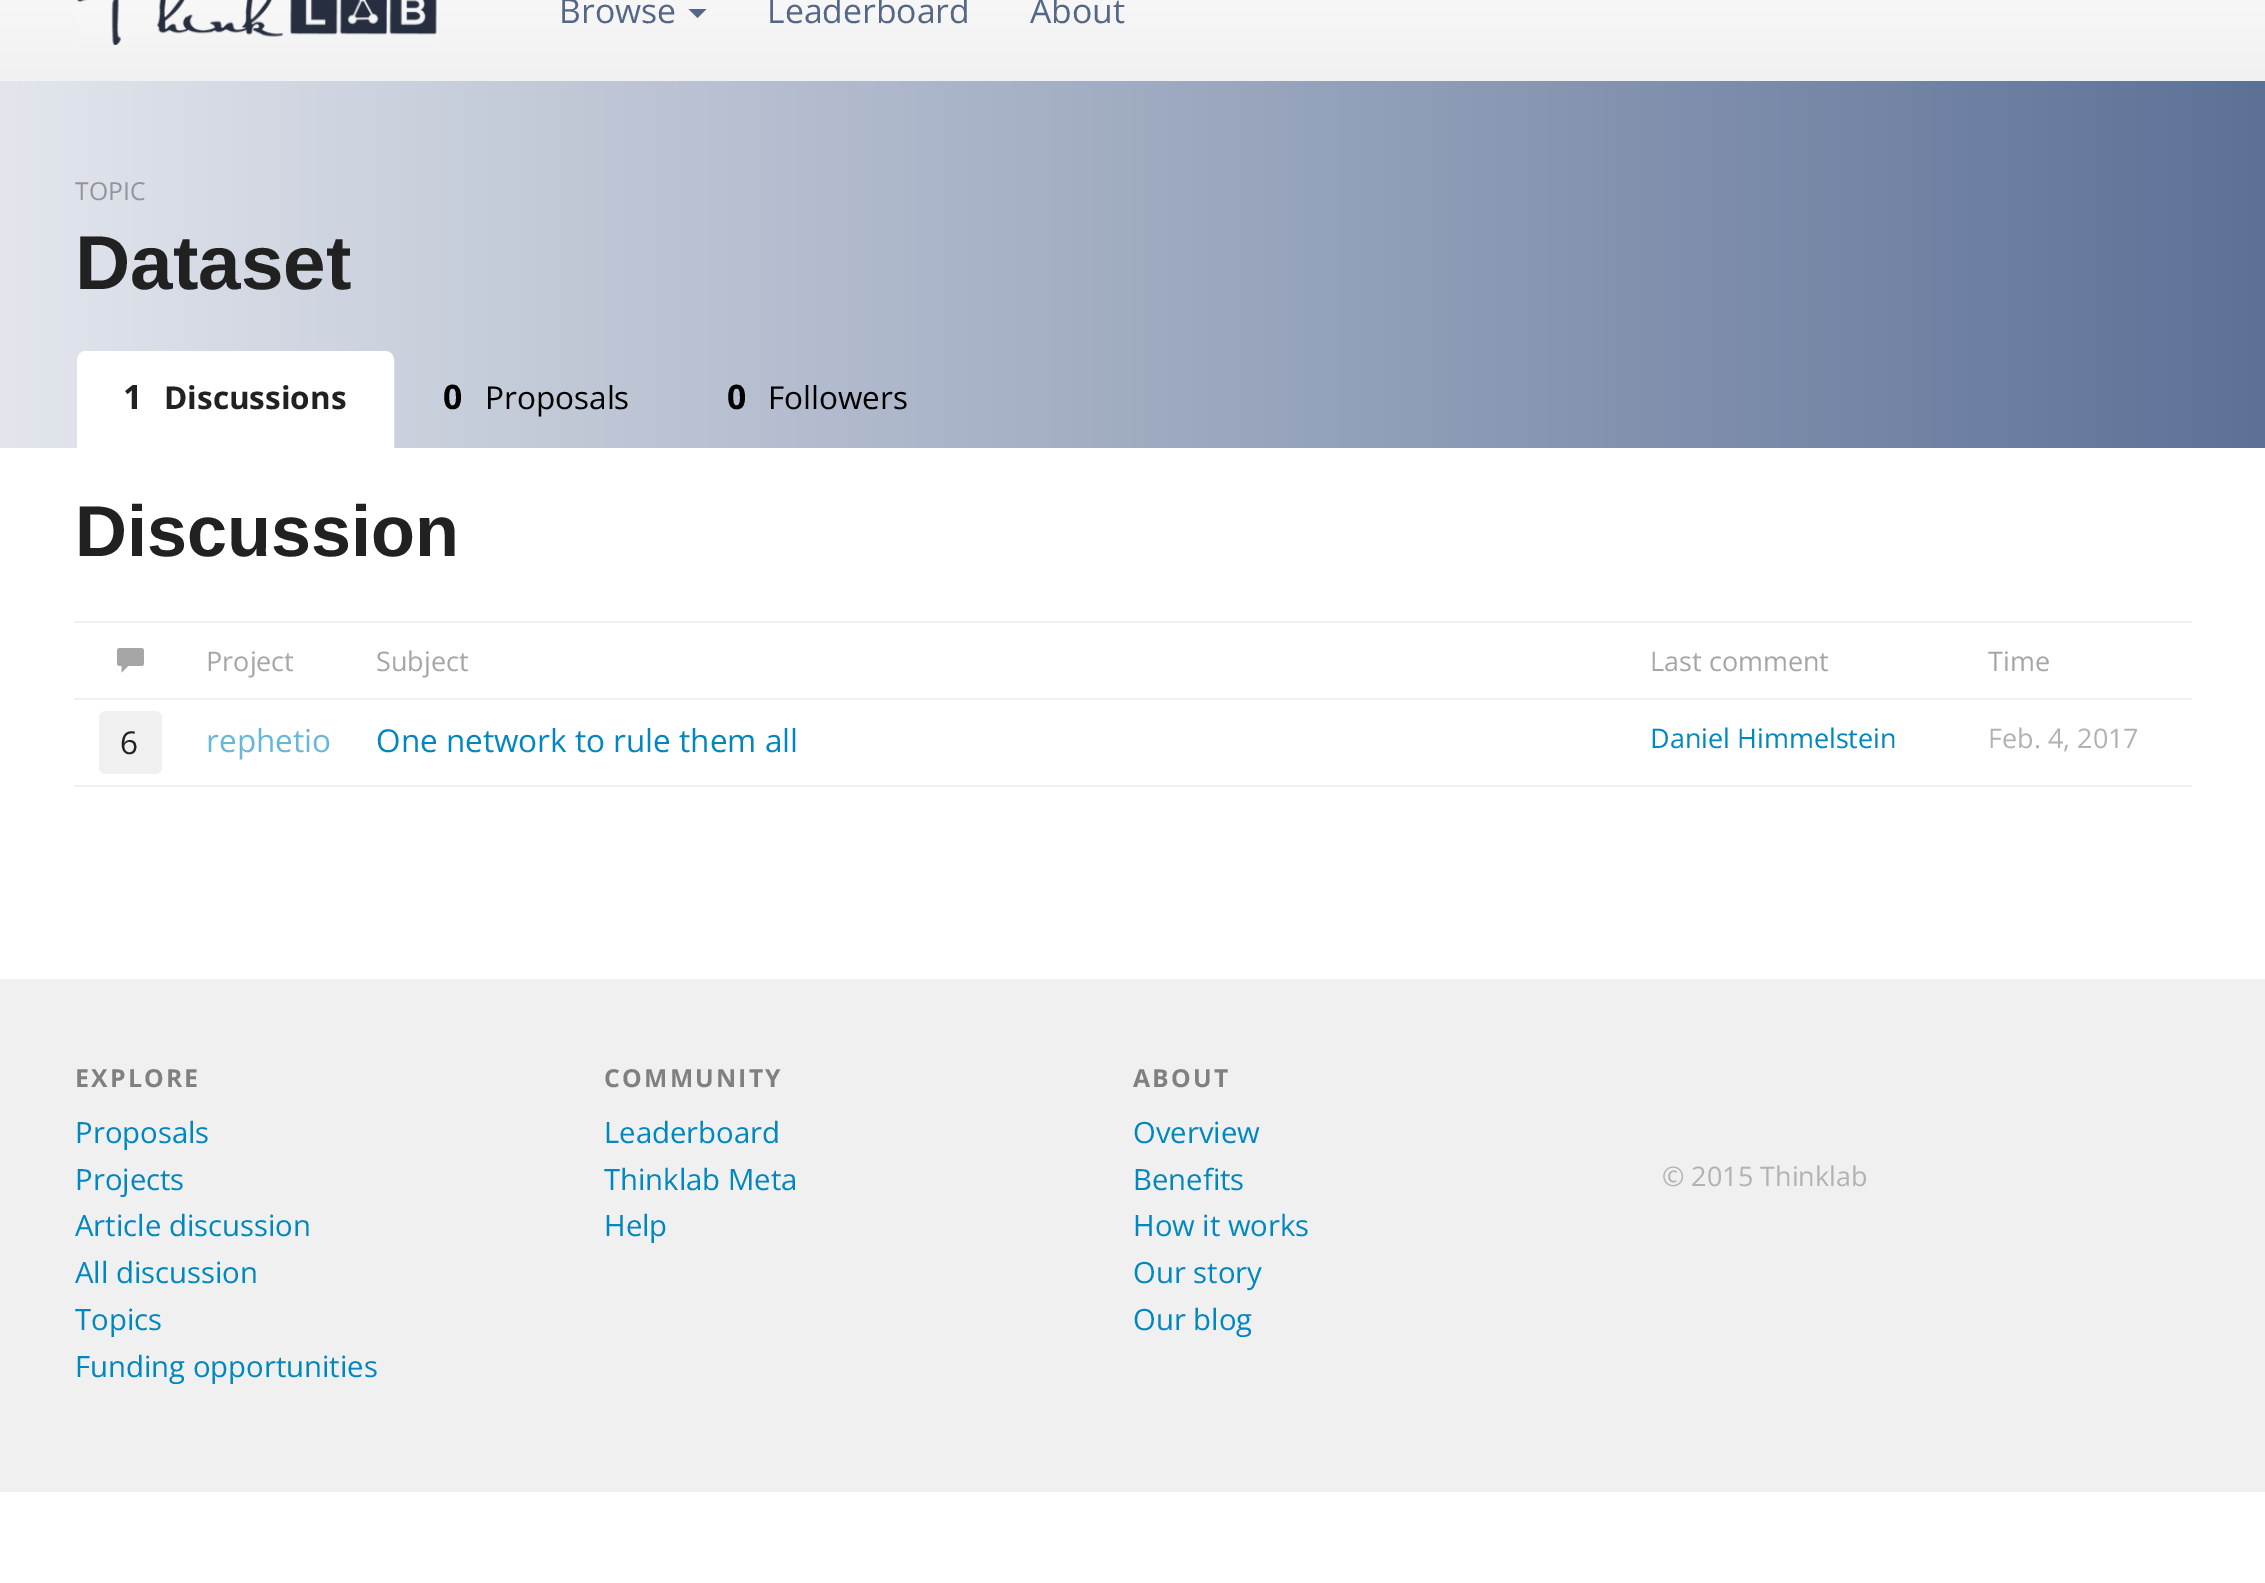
%!PS
<< /PageSize [2265 1583] >> setpagedevice
/rgb { 3 { 255 div 3 1 roll } repeat setrgbcolor } def
/font { [ exch dup neg 0 0 3 -1 roll 0 0 ] selectfont } def
/text { moveto show } def
/roundrect { 5 dict begin { /r /h /w /y /x } { exch def } forall
  x r add y moveto x w add y 2 copy h add r arct x w add y h add x 1 index r arct
  x y h add x y r arct x y 2 copy exch w add exch r arct closepath end } def
/picture { 5 dict begin { /h /w /y /x /name } { exch def } forall
  gsave x y translate w h scale
  w h 8 [w 0 0 h 0 0] name (r) file false 3 colorimage grestore end } def
0 1583 translate 1 -1 scale
4 setmiterlimit
255 255 255 rgb
0 0 2265 1583 rectfill
gsave 0 0 moveto 2265 0 rlineto 0 81 rlineto -2265 0 rlineto closepath clip newpath
<< /ShadingType 2 /ColorSpace /DeviceRGB /Coords [1133 -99 1133 81] /Extend [true true] /Function << /FunctionType 2 /Domain [0 1] /C0 [1 1 1] /C1 [0.945 0.945 0.945] /N 1 >> >> shfill grestore
(img_01.rgb) 76 0 361 45 picture
85 103 135 rgb
688.5 9 moveto 18 0 rlineto -9 9 rlineto closepath fill
gsave 0 81 moveto 2265 0 rlineto 0 367 rlineto -2265 0 rlineto closepath clip newpath
<< /ShadingType 2 /ColorSpace /DeviceRGB /Coords [0 264 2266 264] /Extend [true true] /Function << /FunctionType 2 /Domain [0 1] /C0 [0.89 0.902 0.929] /C1 [0.365 0.443 0.592] /N 1 >> >> shfill grestore
255 255 255 rgb
86 352 moveto 299 0 rlineto 4.5 0 8 3.5 8 8 rcurveto 0 87 rlineto -315 0 rlineto 0 -87 rlineto 0 -4.5 3.5 -8 8 -8 rcurveto closepath gsave fill grestore
2 setlinewidth
stroke
(img_02.rgb) 117 648 27 25 picture
240 240 240 rgb
74 621 2118 2 rectfill
99 711 63 63 7 roundrect fill
74 698 2118 2 rectfill
74 785 2118 2 rectfill
0 979 2265 513 rectfill
/OpenSans-Regular 33.75 font
85 103 135 rgb
(Browse) 559 23 text
(Leaderboard) 767 23 text
(About) 1030 23 text
/OpenSans-Regular 24.75 font
145 148 153 rgb
(TOPIC) 75 200 text
/LiberationSans-Bold 76.5 font
33 33 33 rgb
(Dataset) 75 289 text
/OpenSans-Bold 33.75 font
(1) 123 409 text
/OpenSans-Bold 31.5 font
(Discussions) 164 409 text
/OpenSans-Bold 33.75 font
0 0 0 rgb
(0) 443 409 text
/OpenSans-Regular 31.5 font
(Proposals) 485 409 text
/OpenSans-Bold 33.75 font
(0) 727 409 text
/OpenSans-Regular 31.5 font
(Followers) 768 409 text
/LiberationSans-Bold 72 font
33 33 33 rgb
(Discussion) 75 556 text
/OpenSans-Regular 27 font
166 166 166 rgb
(Project) 206 671 text
(Subject) 376 671 text
(Last comment) 1650 671 text
(Time) 1988 671 text
/OpenSans-Regular 31.5 font
33 33 33 rgb
(6) 120 754 text
103 183 217 rgb
(rephetio) 206 752 text
1 135 191 rgb
(One network to rule them all) 376 752 text
/OpenSans-Regular 27 font
(Daniel Himmelstein) 1650 748 text
178 178 178 rgb
(Feb. 4, 2017) 1988 748 text
/OpenSans-Bold 24.75 font
128 128 128 rgb
75 1087 moveto 2.25 0 (EXPLORE) ashow
/OpenSans-Regular 29.25 font
1 135 191 rgb
(Proposals) 75 1143 text
(Projects) 75 1190 text
(Article discussion) 75 1236 text
(All discussion) 75 1283 text
(Topics) 75 1330 text
(Funding opportunities) 75 1377 text
/OpenSans-Bold 24.75 font
128 128 128 rgb
604 1087 moveto 2.25 0 (COMMUNITY) ashow
/OpenSans-Regular 29.25 font
1 135 191 rgb
(Leaderboard) 604 1143 text
(Thinklab Meta) 604 1190 text
(Help) 604 1236 text
/OpenSans-Bold 24.75 font
128 128 128 rgb
1133 1087 moveto 2.25 0 (ABOUT) ashow
/OpenSans-Regular 29.25 font
1 135 191 rgb
(Overview) 1133 1143 text
(Benefits) 1133 1190 text
(How it works) 1133 1236 text
(Our story) 1133 1283 text
(Our blog) 1133 1330 text
/OpenSans-Regular 27 font
178 178 178 rgb
(© 2015 Thinklab) 1662 1186 text
showpage
